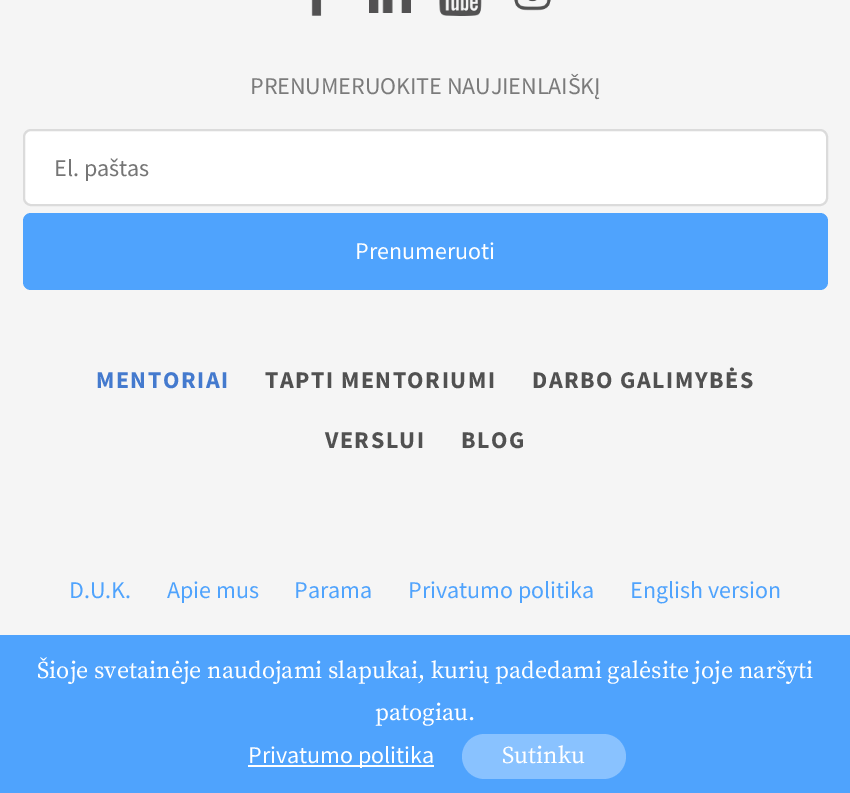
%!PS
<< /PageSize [850 793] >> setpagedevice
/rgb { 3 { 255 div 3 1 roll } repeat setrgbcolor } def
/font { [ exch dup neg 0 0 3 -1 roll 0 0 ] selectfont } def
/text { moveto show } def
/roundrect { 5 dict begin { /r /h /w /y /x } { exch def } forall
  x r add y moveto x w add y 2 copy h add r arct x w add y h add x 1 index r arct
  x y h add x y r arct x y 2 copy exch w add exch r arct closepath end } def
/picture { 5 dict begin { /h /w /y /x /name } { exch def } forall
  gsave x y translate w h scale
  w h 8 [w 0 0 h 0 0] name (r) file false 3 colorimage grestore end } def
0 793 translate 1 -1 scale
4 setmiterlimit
245 245 245 rgb
0 0 850 793 rectfill
(img_01.rgb) 311 0 11 16 picture
(img_02.rgb) 369 0 42 13 picture
(img_03.rgb) 439 0 43 16 picture
(img_04.rgb) 514 0 37 11 picture
255 255 255 rgb
24 130 803 75 7 roundrect gsave fill grestore
219 219 219 rgb
2 setlinewidth
stroke
79 163 253 rgb
23 213 805 77 8 roundrect fill
0 635 850 158 rectfill
255 255 255 rgb
248 765 186 2 rectfill
137 194 255 rgb
462 734 164 45 22.5 roundrect fill
/SourceSansPro-Regular 24 font
123 123 123 rgb
(PRENUMERUOKITE NAUJIENLAIŠKĮ) 250 94 text
117 117 117 rgb
(El. paštas) 54 176 text
255 255 255 rgb
(Prenumeruoti) 355 259 text
/SourceSansPro-Bold 24 font
68 122 206 rgb
96 388 moveto 1.5 0 (MENTORIAI) ashow
81 81 81 rgb
265 388 moveto 1.5 0 (TAPTI MENTORIUMI) ashow
532 388 moveto 1.5 0 (DARBO GALIMYBĖS) ashow
325 448 moveto 1.5 0 (VERSLUI) ashow
461 448 moveto 1.5 0 (BLOG) ashow
/SourceSansPro-Regular 24 font
79 163 253 rgb
(D.U.K.) 69 598 text
(Apie mus) 167 598 text
(Parama) 294 598 text
(Privatumo politika) 408 598 text
(English version) 630 598 text
/SourceSerifPro-Regular 24 font
255 255 255 rgb
(Šioje svetainėje naudojami slapukai, kurių padedami galėsite joje naršyti) 37 678 text
(patogiau.) 375 720 text
/SourceSansPro-Regular 24 font
(Privatumo politika) 248 763 text
/SourceSerifPro-Regular 24 font
(Sutinku) 502 763 text
showpage
